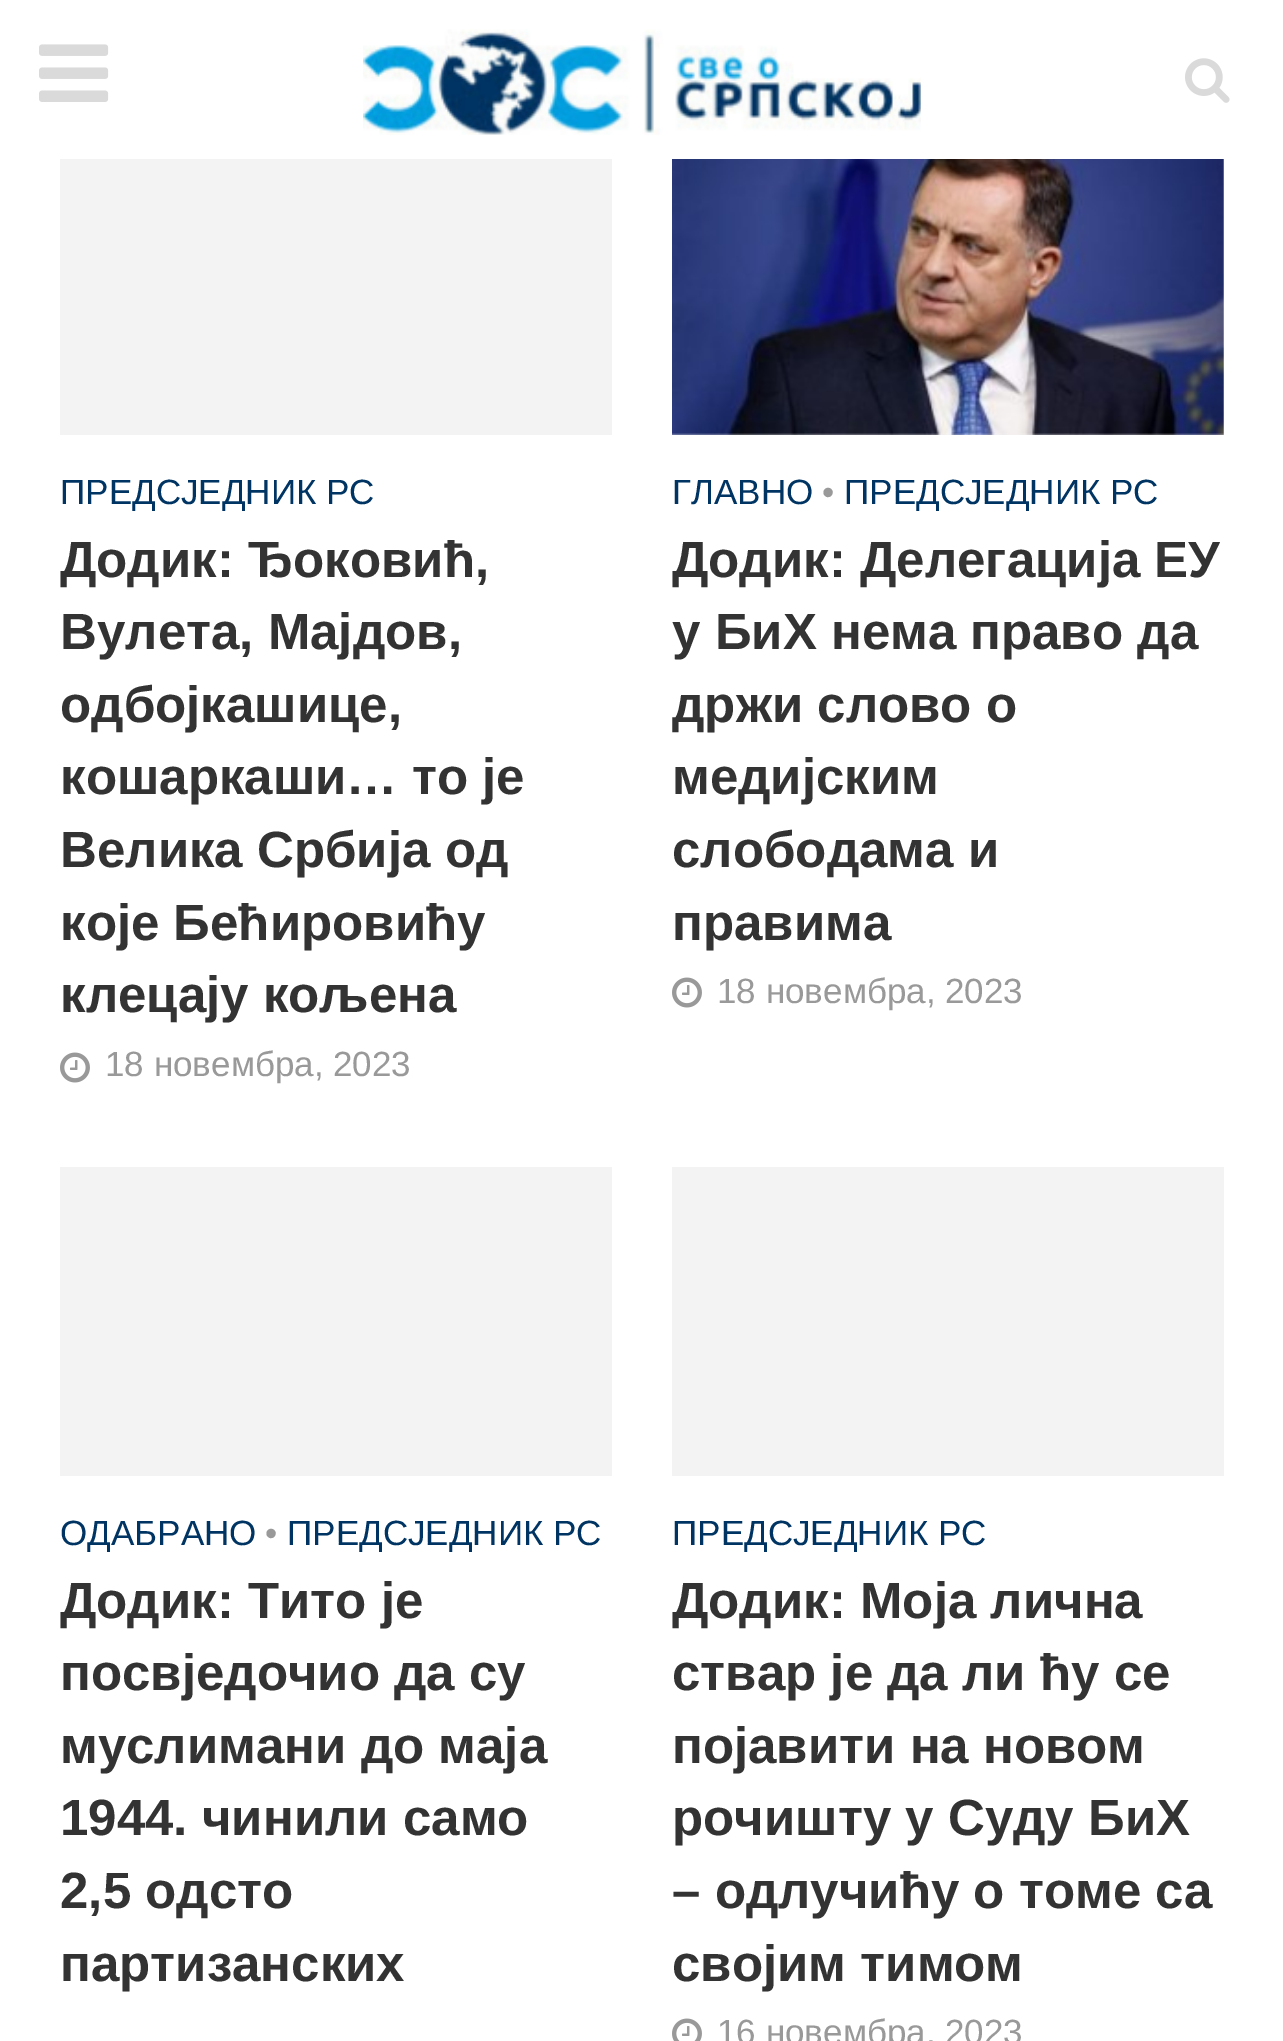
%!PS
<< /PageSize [1283 2041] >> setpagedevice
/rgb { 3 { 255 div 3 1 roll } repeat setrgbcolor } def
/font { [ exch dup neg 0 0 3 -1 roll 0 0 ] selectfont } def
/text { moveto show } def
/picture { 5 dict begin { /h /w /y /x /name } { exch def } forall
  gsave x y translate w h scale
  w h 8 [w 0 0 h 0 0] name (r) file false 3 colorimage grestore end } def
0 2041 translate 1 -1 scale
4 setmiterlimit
255 255 255 rgb
0 0 1283 2041 rectfill
(img_01.rgb) 39 44 70 58 picture
(img_02.rgb) 363 29 558 106 picture
(img_03.rgb) 1185 58 45 45 picture
243 243 243 rgb
60 159 552 276 rectfill
(img_04.rgb) 60 1052 30 31 picture
672 159 552 276 rectfill
(img_05.rgb) 672 159 552 276 picture
(img_04.rgb) 672 977 30 31 picture
60 1167 552 309 rectfill
672 1167 552 309 rectfill
(img_06.rgb) 672 2018 30 23 picture
/LiberationSans-Regular 35 font
0 52 99 rgb
(ПРЕДСЈЕДНИК РС) 60 504 text
/LiberationSans-Bold 51 font
51 51 51 rgb
(Додик: Ђоковић,) 60 577 text
(Вулета, Мајдов,) 60 649 text
(одбојкашице,) 60 722 text
(кошаркаши… то је) 60 794 text
(Велика Србија од) 60 867 text
(које Бећировићу) 60 940 text
(клецају кољена) 60 1012 text
/LiberationSans-Regular 35 font
153 153 153 rgb
(18 новембра, 2023) 105 1076 text
0 52 99 rgb
(ГЛАВНО) 672 504 text
153 153 153 rgb
(•) 822 504 text
0 52 99 rgb
(ПРЕДСЈЕДНИК РС) 844 504 text
/LiberationSans-Bold 51 font
51 51 51 rgb
(Додик: Делегација ЕУ) 672 577 text
(у БиХ нема право да) 672 649 text
(држи слово о) 672 722 text
(медијским) 672 794 text
(слободама и) 672 867 text
(правима) 672 940 text
/LiberationSans-Regular 35 font
153 153 153 rgb
(18 новембра, 2023) 717 1003 text
0 52 99 rgb
(ОДАБРАНО) 60 1545 text
153 153 153 rgb
(•) 265 1545 text
0 52 99 rgb
(ПРЕДСЈЕДНИК РС) 287 1545 text
/LiberationSans-Bold 51 font
51 51 51 rgb
(Додик: Тито је) 60 1618 text
(посвједочио да су) 60 1690 text
(муслимани до маја) 60 1763 text
(1944. чинили само) 60 1835 text
(2,5 одсто) 60 1908 text
(партизанских) 60 1981 text
/LiberationSans-Regular 35 font
0 52 99 rgb
(ПРЕДСЈЕДНИК РС) 672 1545 text
/LiberationSans-Bold 51 font
51 51 51 rgb
(Додик: Моја лична) 672 1618 text
(ствар је да ли ћу се) 672 1690 text
(појавити на новом) 672 1763 text
(рочишту у Суду БиХ) 672 1835 text
(– одлучићу о томе са) 672 1908 text
(својим тимом) 672 1981 text
/LiberationSans-Regular 35 font
153 153 153 rgb
(16 новембра, 2023) 717 2044 text
showpage
